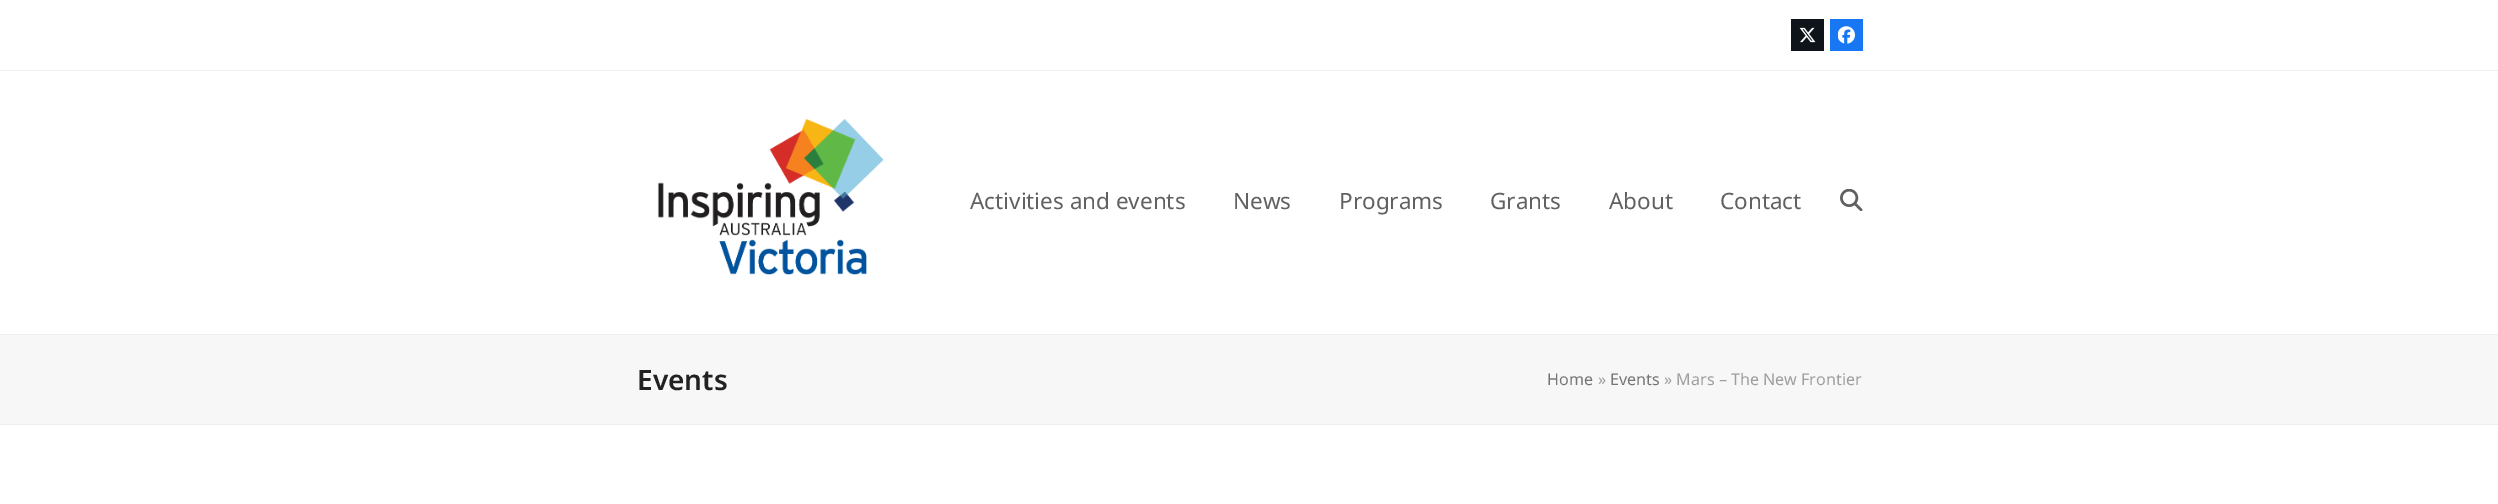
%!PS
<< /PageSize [2498 504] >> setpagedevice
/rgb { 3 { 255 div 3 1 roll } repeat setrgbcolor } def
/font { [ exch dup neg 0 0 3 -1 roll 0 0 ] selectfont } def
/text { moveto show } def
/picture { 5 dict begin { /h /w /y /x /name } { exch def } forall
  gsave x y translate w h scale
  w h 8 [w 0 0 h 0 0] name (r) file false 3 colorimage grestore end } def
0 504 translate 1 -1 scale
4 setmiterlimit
255 255 255 rgb
0 0 2498 504 rectfill
238 238 238 rgb
0 70 2498 1 rectfill
15 20 26 rgb
1791 19 33 32 rectfill
(img_01.rgb) 1799 27 17 16 picture
24 119 242 rgb
1830 19 33 32 rectfill
(img_02.rgb) 1838 26 17 18 picture
(img_03.rgb) 657 119 227 156 picture
(img_04.rgb) 1840 189 23 22 picture
247 247 247 rgb
0 335 2498 89 rectfill
238 238 238 rgb
0 334 2498 1 rectfill
0 424 2498 1 rectfill
/NotoSans-Regular 22.5 font
97 97 97 rgb
(Activities and events) 970 209 text
(News) 1233 209 text
(Programs) 1339 209 text
(Grants) 1490 209 text
(About) 1609 209 text
(Contact) 1720 209 text
/NotoSans-SemiBold 28 font
34 34 34 rgb
(Events) 637 390 text
/NotoSans-Regular 16.1 font
117 117 117 rgb
(Home) 1547 385 text
158 158 158 rgb
(») 1598 385 text
117 117 117 rgb
(Events) 1610 385 text
158 158 158 rgb
(» Mars – The New Frontier) 1664 385 text
showpage
